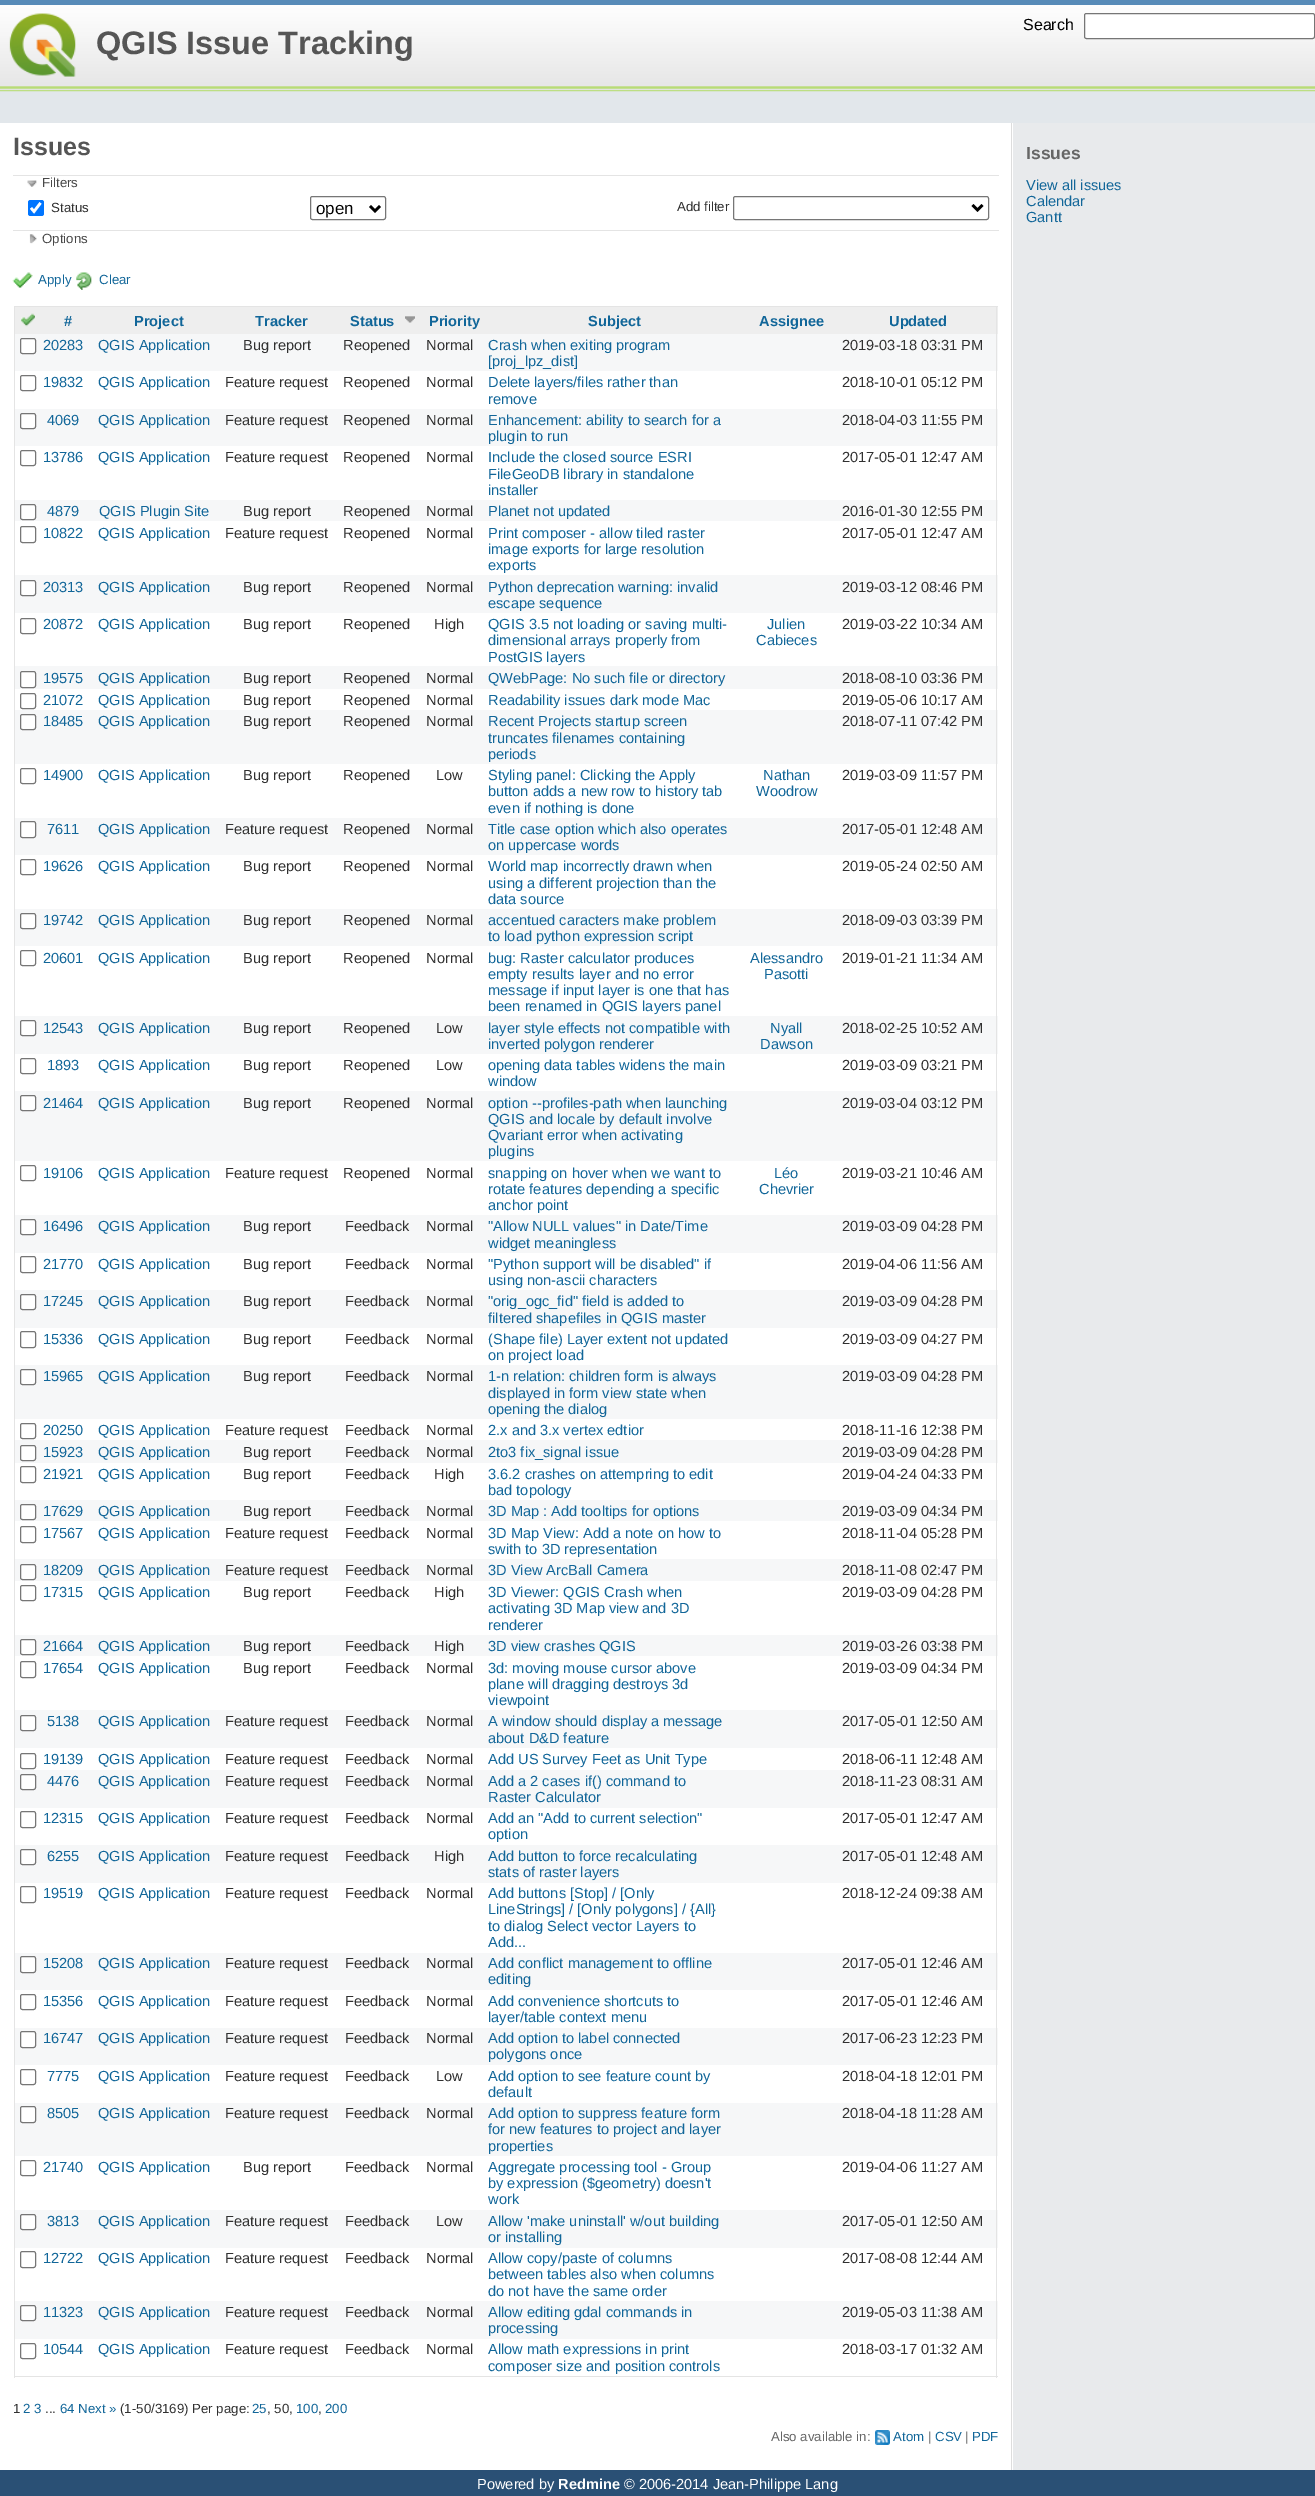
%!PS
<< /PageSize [1315 2496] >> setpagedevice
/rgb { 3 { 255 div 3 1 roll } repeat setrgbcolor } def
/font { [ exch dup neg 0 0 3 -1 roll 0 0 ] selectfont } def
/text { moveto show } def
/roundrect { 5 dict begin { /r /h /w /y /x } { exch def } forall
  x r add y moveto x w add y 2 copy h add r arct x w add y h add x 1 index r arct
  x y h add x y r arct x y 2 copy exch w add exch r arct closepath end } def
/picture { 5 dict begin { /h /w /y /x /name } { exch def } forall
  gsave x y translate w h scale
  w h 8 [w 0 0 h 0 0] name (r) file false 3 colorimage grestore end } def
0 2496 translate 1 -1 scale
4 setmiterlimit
87 139 184 rgb
0 0 1315 2496 rectfill
226 231 235 rgb
0 91 1315 32 rectfill
(img_01.rgb) 0 5 1315 87 picture
255 255 255 rgb
1084.5 13.5 230 25 2 roundrect gsave fill grestore
118 118 118 rgb
stroke
(img_02.rgb) 9 13 67 64 picture
232 234 236 rgb
1013 123 302 2347 rectfill
255 255 255 rgb
0 123 1013 2347 rectfill
221 221 221 rgb
1011 123 1 2347 rectfill
228 228 228 rgb
13 175 986 1 rectfill
(img_03.rgb) 27 180 10 7 picture
0 117 255 rgb
28 200 16 16 2.5 roundrect fill
255 255 255 rgb
2.6 setlinewidth
31 208 moveto 3 3.5 rlineto 6.5 -8.5 rlineto stroke
118 118 118 rgb
1 setlinewidth
310.5 196.5 75 23 2 roundrect stroke
0 0 0 rgb
2.5 setlinewidth
370 206 moveto 5 5 rlineto 5 -5 rlineto stroke
118 118 118 rgb
1 setlinewidth
733.5 196.5 255 23 2 roundrect stroke
0 0 0 rgb
2.5 setlinewidth
972.5 205 moveto 5 5 rlineto 5 -5 rlineto stroke
228 228 228 rgb
13 230 986 1 rectfill
(img_04.rgb) 29 234 8 10 picture
(img_05.rgb) 12 272 21 16 picture
(img_06.rgb) 76 272 16 18 picture
14 306 984 1 rectfill
238 238 238 rgb
15 307 983 27 rectfill
246 247 248 rgb
15 334 983 37 rectfill
15 409 983 37 rectfill
15 500 983 21 rectfill
15 575 983 38 rectfill
15 666 983 23 rectfill
15 710 983 54 rectfill
15 818 983 37 rectfill
15 909 983 37 rectfill
15 1016 983 38 rectfill
15 1091 983 70 rectfill
15 1215 983 38 rectfill
15 1290 983 38 rectfill
15 1365 983 54 rectfill
15 1440 983 23 rectfill
15 1500 983 21 rectfill
15 1559 983 22 rectfill
15 1635 983 21 rectfill
15 1710 983 38 rectfill
15 1770 983 38 rectfill
15 1845 983 38 rectfill
15 1953 983 37 rectfill
15 2028 983 37 rectfill
15 2103 983 53 rectfill
15 2210 983 38 rectfill
15 2301 983 38 rectfill
228 228 228 rgb
996 306 1 2072 rectfill
14 2376 984 1 rectfill
14 306 1 2072 rectfill
(img_07.rgb) 21 313 14 14 picture
(img_08.rgb) 405 316 10 7 picture
255 255 255 rgb
20.5 338.5 15 15 2 roundrect gsave fill grestore
118 118 118 rgb
1 setlinewidth
stroke
20.5 375.5 15 15 2 roundrect stroke
255 255 255 rgb
20.5 413.5 15 15 2 roundrect gsave fill grestore
118 118 118 rgb
stroke
20.5 450.5 15 15 2 roundrect stroke
255 255 255 rgb
20.5 504.5 15 15 2 roundrect gsave fill grestore
118 118 118 rgb
stroke
20.5 526.5 15 16 2 roundrect stroke
255 255 255 rgb
20.5 580.5 15 15 2 roundrect gsave fill grestore
118 118 118 rgb
stroke
20.5 618.5 15 15 2 roundrect stroke
255 255 255 rgb
20.5 671.5 15 16 2 roundrect gsave fill grestore
118 118 118 rgb
stroke
20.5 693.5 15 15 2 roundrect stroke
255 255 255 rgb
20.5 714.5 15 15 2 roundrect gsave fill grestore
118 118 118 rgb
stroke
20.5 768.5 15 15 2 roundrect stroke
255 255 255 rgb
20.5 821.5 15 16 2 roundrect gsave fill grestore
118 118 118 rgb
stroke
20.5 859.5 15 15 2 roundrect stroke
255 255 255 rgb
20.5 913.5 15 15 2 roundrect gsave fill grestore
118 118 118 rgb
stroke
20.5 950.5 15 15 2 roundrect stroke
255 255 255 rgb
20.5 1020.5 15 15 2 roundrect gsave fill grestore
118 118 118 rgb
stroke
20.5 1058.5 15 15 2 roundrect stroke
255 255 255 rgb
20.5 1095.5 15 15 2 roundrect gsave fill grestore
118 118 118 rgb
stroke
20.5 1165.5 15 15 2 roundrect stroke
255 255 255 rgb
20.5 1219.5 15 15 2 roundrect gsave fill grestore
118 118 118 rgb
stroke
20.5 1256.5 15 16 2 roundrect stroke
255 255 255 rgb
20.5 1294.5 15 15 2 roundrect gsave fill grestore
118 118 118 rgb
stroke
20.5 1331.5 15 16 2 roundrect stroke
255 255 255 rgb
20.5 1369.5 15 15 2 roundrect gsave fill grestore
118 118 118 rgb
stroke
20.5 1423.5 15 15 2 roundrect stroke
255 255 255 rgb
20.5 1445.5 15 15 2 roundrect gsave fill grestore
118 118 118 rgb
stroke
20.5 1466.5 15 16 2 roundrect stroke
255 255 255 rgb
20.5 1504.5 15 15 2 roundrect gsave fill grestore
118 118 118 rgb
stroke
20.5 1526.5 15 16 2 roundrect stroke
255 255 255 rgb
20.5 1564.5 15 15 2 roundrect gsave fill grestore
118 118 118 rgb
stroke
20.5 1585.5 15 15 2 roundrect stroke
255 255 255 rgb
20.5 1639.5 15 15 2 roundrect gsave fill grestore
118 118 118 rgb
stroke
20.5 1661.5 15 16 2 roundrect stroke
255 255 255 rgb
20.5 1715.5 15 15 2 roundrect gsave fill grestore
118 118 118 rgb
stroke
20.5 1753.5 15 15 2 roundrect stroke
255 255 255 rgb
20.5 1774.5 15 15 2 roundrect gsave fill grestore
118 118 118 rgb
stroke
20.5 1811.5 15 16 2 roundrect stroke
255 255 255 rgb
20.5 1849.5 15 15 2 roundrect gsave fill grestore
118 118 118 rgb
stroke
20.5 1886.5 15 16 2 roundrect stroke
255 255 255 rgb
20.5 1956.5 15 16 2 roundrect gsave fill grestore
118 118 118 rgb
stroke
20.5 1994.5 15 15 2 roundrect stroke
255 255 255 rgb
20.5 2031.5 15 16 2 roundrect gsave fill grestore
118 118 118 rgb
stroke
20.5 2069.5 15 15 2 roundrect stroke
255 255 255 rgb
20.5 2106.5 15 16 2 roundrect gsave fill grestore
118 118 118 rgb
stroke
20.5 2160.5 15 15 2 roundrect stroke
255 255 255 rgb
20.5 2214.5 15 15 2 roundrect gsave fill grestore
118 118 118 rgb
stroke
20.5 2251.5 15 16 2 roundrect stroke
255 255 255 rgb
20.5 2305.5 15 15 2 roundrect gsave fill grestore
118 118 118 rgb
stroke
20.5 2343.5 15 15 2 roundrect stroke
(img_09.rgb) 875 2430 15 15 picture
42 80 117 rgb
0 2470 1315 26 rectfill
/LiberationSans-Regular 16 font
0 0 0 rgb
(Search) 1023 30 text
/LiberationSans-Bold 32.5 font
85 85 85 rgb
(QGIS Issue Tracking) 96 54 text
/LiberationSans-Bold 25 font
(Issues) 13 155 text
/LiberationSans-Regular 13.25 font
72 72 72 rgb
(Filters) 42 187 text
48 48 48 rgb
(Status) 51 212 text
/LiberationSans-Regular 17 font
0 0 0 rgb
(open) 316 214 text
/LiberationSans-Regular 13.25 font
48 48 48 rgb
(Add filter) 677 211 text
72 72 72 rgb
(Options) 42 243 text
17 102 153 rgb
(Apply) 38 284 text
(Clear) 99 284 text
/LiberationSans-Bold 14.6 font
(#) 64 326 text
(Project) 134 326 text
(Tracker) 255 326 text
(Status) 350 326 text
(Priority) 429 326 text
(Subject) 588 326 text
(Assignee) 759 326 text
(Updated) 889 326 text
/LiberationSans-Regular 14.6 font
(20283) 43 350 text
(QGIS Application) 98 350 text
48 48 48 rgb
(Bug report) 243 350 text
(Reopened) 343 350 text
(Normal) 426 350 text
17 102 153 rgb
(Crash when exiting program) 488 350 text
([proj_lpz_dist]) 488 366 text
48 48 48 rgb
(2019-03-18 03:31 PM) 842 350 text
17 102 153 rgb
(19832) 43 387 text
(QGIS Application) 98 387 text
48 48 48 rgb
(Feature request) 225 387 text
(Reopened) 343 387 text
(Normal) 426 387 text
17 102 153 rgb
(Delete layers/files rather than) 488 387 text
(remove) 488 404 text
48 48 48 rgb
(2018-10-01 05:12 PM) 842 387 text
17 102 153 rgb
(4069) 47 425 text
(QGIS Application) 98 425 text
48 48 48 rgb
(Feature request) 225 425 text
(Reopened) 343 425 text
(Normal) 426 425 text
17 102 153 rgb
(Enhancement: ability to search for a) 488 425 text
(plugin to run) 488 441 text
48 48 48 rgb
(2018-04-03 11:55 PM) 842 425 text
17 102 153 rgb
(13786) 43 462 text
(QGIS Application) 98 462 text
48 48 48 rgb
(Feature request) 225 462 text
(Reopened) 343 462 text
(Normal) 426 462 text
17 102 153 rgb
(Include the closed source ESRI) 488 462 text
(FileGeoDB library in standalone) 488 479 text
(installer) 488 495 text
48 48 48 rgb
(2017-05-01 12:47 AM) 842 462 text
17 102 153 rgb
(4879) 47 516 text
(QGIS Plugin Site) 99 516 text
48 48 48 rgb
(Bug report) 243 516 text
(Reopened) 343 516 text
(Normal) 426 516 text
17 102 153 rgb
(Planet not updated) 488 516 text
48 48 48 rgb
(2016-01-30 12:55 PM) 842 516 text
17 102 153 rgb
(10822) 43 538 text
(QGIS Application) 98 538 text
48 48 48 rgb
(Feature request) 225 538 text
(Reopened) 343 538 text
(Normal) 426 538 text
17 102 153 rgb
(Print composer - allow tiled raster) 488 538 text
(image exports for large resolution) 488 554 text
(exports) 488 570 text
48 48 48 rgb
(2017-05-01 12:47 AM) 842 538 text
17 102 153 rgb
(20313) 43 592 text
(QGIS Application) 98 592 text
48 48 48 rgb
(Bug report) 243 592 text
(Reopened) 343 592 text
(Normal) 426 592 text
17 102 153 rgb
(Python deprecation warning: invalid) 488 592 text
(escape sequence) 488 608 text
48 48 48 rgb
(2019-03-12 08:46 PM) 842 592 text
17 102 153 rgb
(20872) 43 629 text
(QGIS Application) 98 629 text
48 48 48 rgb
(Bug report) 243 629 text
(Reopened) 343 629 text
(High) 434 629 text
17 102 153 rgb
(QGIS 3.5 not loading or saving multi-) 488 629 text
(dimensional arrays properly from) 488 645 text
(PostGIS layers) 488 662 text
(Julien) 767 629 text
(Cabieces) 756 645 text
48 48 48 rgb
(2019-03-22 10:34 AM) 842 629 text
17 102 153 rgb
(19575) 43 683 text
(QGIS Application) 98 683 text
48 48 48 rgb
(Bug report) 243 683 text
(Reopened) 343 683 text
(Normal) 426 683 text
17 102 153 rgb
(QWebPage: No such file or directory) 488 683 text
48 48 48 rgb
(2018-08-10 03:36 PM) 842 683 text
17 102 153 rgb
(21072) 43 705 text
(QGIS Application) 98 705 text
48 48 48 rgb
(Bug report) 243 705 text
(Reopened) 343 705 text
(Normal) 426 705 text
17 102 153 rgb
(Readability issues dark mode Mac) 488 705 text
48 48 48 rgb
(2019-05-06 10:17 AM) 842 705 text
17 102 153 rgb
(18485) 43 726 text
(QGIS Application) 98 726 text
48 48 48 rgb
(Bug report) 243 726 text
(Reopened) 343 726 text
(Normal) 426 726 text
17 102 153 rgb
(Recent Projects startup screen) 488 726 text
(truncates filenames containing) 488 743 text
(periods) 488 759 text
48 48 48 rgb
(2018-07-11 07:42 PM) 842 726 text
17 102 153 rgb
(14900) 43 780 text
(QGIS Application) 98 780 text
48 48 48 rgb
(Bug report) 243 780 text
(Reopened) 343 780 text
(Low) 436 780 text
17 102 153 rgb
(Styling panel: Clicking the Apply) 488 780 text
(button adds a new row to history tab) 488 796 text
(even if nothing is done) 488 813 text
(Nathan) 763 780 text
(Woodrow) 756 796 text
48 48 48 rgb
(2019-03-09 11:57 PM) 842 780 text
17 102 153 rgb
(7611) 47 834 text
(QGIS Application) 98 834 text
48 48 48 rgb
(Feature request) 225 834 text
(Reopened) 343 834 text
(Normal) 426 834 text
17 102 153 rgb
(Title case option which also operates) 488 834 text
(on uppercase words) 488 850 text
48 48 48 rgb
(2017-05-01 12:48 AM) 842 834 text
17 102 153 rgb
(19626) 43 871 text
(QGIS Application) 98 871 text
48 48 48 rgb
(Bug report) 243 871 text
(Reopened) 343 871 text
(Normal) 426 871 text
17 102 153 rgb
(World map incorrectly drawn when) 488 871 text
(using a different projection than the) 488 888 text
(data source) 488 904 text
48 48 48 rgb
(2019-05-24 02:50 AM) 842 871 text
17 102 153 rgb
(19742) 43 925 text
(QGIS Application) 98 925 text
48 48 48 rgb
(Bug report) 243 925 text
(Reopened) 343 925 text
(Normal) 426 925 text
17 102 153 rgb
(accentued caracters make problem) 488 925 text
(to load python expression script) 488 941 text
48 48 48 rgb
(2018-09-03 03:39 PM) 842 925 text
17 102 153 rgb
(20601) 43 963 text
(QGIS Application) 98 963 text
48 48 48 rgb
(Bug report) 243 963 text
(Reopened) 343 963 text
(Normal) 426 963 text
17 102 153 rgb
(bug: Raster calculator produces) 488 963 text
(empty results layer and no error) 488 979 text
(message if input layer is one that has) 488 995 text
(been renamed in QGIS layers panel) 488 1011 text
(Alessandro) 750 963 text
(Pasotti) 764 979 text
48 48 48 rgb
(2019-01-21 11:34 AM) 842 963 text
17 102 153 rgb
(12543) 43 1033 text
(QGIS Application) 98 1033 text
48 48 48 rgb
(Bug report) 243 1033 text
(Reopened) 343 1033 text
(Low) 436 1033 text
17 102 153 rgb
(layer style effects not compatible with) 488 1033 text
(inverted polygon renderer) 488 1049 text
(Nyall) 770 1033 text
(Dawson) 760 1049 text
48 48 48 rgb
(2018-02-25 10:52 AM) 842 1033 text
17 102 153 rgb
(1893) 47 1070 text
(QGIS Application) 98 1070 text
48 48 48 rgb
(Bug report) 243 1070 text
(Reopened) 343 1070 text
(Low) 436 1070 text
17 102 153 rgb
(opening data tables widens the main) 488 1070 text
(window) 488 1086 text
48 48 48 rgb
(2019-03-09 03:21 PM) 842 1070 text
17 102 153 rgb
(21464) 43 1108 text
(QGIS Application) 98 1108 text
48 48 48 rgb
(Bug report) 243 1108 text
(Reopened) 343 1108 text
(Normal) 426 1108 text
17 102 153 rgb
(option --profiles-path when launching) 488 1108 text
(QGIS and locale by default involve) 488 1124 text
(Qvariant error when activating) 488 1140 text
(plugins) 488 1156 text
48 48 48 rgb
(2019-03-04 03:12 PM) 842 1108 text
17 102 153 rgb
(19106) 43 1178 text
(QGIS Application) 98 1178 text
48 48 48 rgb
(Feature request) 225 1178 text
(Reopened) 343 1178 text
(Normal) 426 1178 text
17 102 153 rgb
(snapping on hover when we want to) 488 1178 text
(rotate features depending a specific) 488 1194 text
(anchor point) 488 1210 text
(Léo) 774 1178 text
(Chevrier) 759 1194 text
48 48 48 rgb
(2019-03-21 10:46 AM) 842 1178 text
17 102 153 rgb
(16496) 43 1231 text
(QGIS Application) 98 1231 text
48 48 48 rgb
(Bug report) 243 1231 text
(Feedback) 345 1231 text
(Normal) 426 1231 text
17 102 153 rgb
("Allow NULL values" in Date/Time) 488 1231 text
(widget meaningless) 488 1248 text
48 48 48 rgb
(2019-03-09 04:28 PM) 842 1231 text
17 102 153 rgb
(21770) 43 1269 text
(QGIS Application) 98 1269 text
48 48 48 rgb
(Bug report) 243 1269 text
(Feedback) 345 1269 text
(Normal) 426 1269 text
17 102 153 rgb
("Python support will be disabled" if) 488 1269 text
(using non-ascii characters) 488 1285 text
48 48 48 rgb
(2019-04-06 11:56 AM) 842 1269 text
17 102 153 rgb
(17245) 43 1306 text
(QGIS Application) 98 1306 text
48 48 48 rgb
(Bug report) 243 1306 text
(Feedback) 345 1306 text
(Normal) 426 1306 text
17 102 153 rgb
("orig_ogc_fid" field is added to) 488 1306 text
(filtered shapefiles in QGIS master) 488 1323 text
48 48 48 rgb
(2019-03-09 04:28 PM) 842 1306 text
17 102 153 rgb
(15336) 43 1344 text
(QGIS Application) 98 1344 text
48 48 48 rgb
(Bug report) 243 1344 text
(Feedback) 345 1344 text
(Normal) 426 1344 text
17 102 153 rgb
(\(Shape file\) Layer extent not updated) 488 1344 text
(on project load) 488 1360 text
48 48 48 rgb
(2019-03-09 04:27 PM) 842 1344 text
17 102 153 rgb
(15965) 43 1381 text
(QGIS Application) 98 1381 text
48 48 48 rgb
(Bug report) 243 1381 text
(Feedback) 345 1381 text
(Normal) 426 1381 text
17 102 153 rgb
(1-n relation: children form is always) 488 1381 text
(displayed in form view state when) 488 1398 text
(opening the dialog) 488 1414 text
48 48 48 rgb
(2019-03-09 04:28 PM) 842 1381 text
17 102 153 rgb
(20250) 43 1435 text
(QGIS Application) 98 1435 text
48 48 48 rgb
(Feature request) 225 1435 text
(Feedback) 345 1435 text
(Normal) 426 1435 text
17 102 153 rgb
(2.x and 3.x vertex edtior) 488 1435 text
48 48 48 rgb
(2018-11-16 12:38 PM) 842 1435 text
17 102 153 rgb
(15923) 43 1457 text
(QGIS Application) 98 1457 text
48 48 48 rgb
(Bug report) 243 1457 text
(Feedback) 345 1457 text
(Normal) 426 1457 text
17 102 153 rgb
(2to3 fix_signal issue) 488 1457 text
48 48 48 rgb
(2019-03-09 04:28 PM) 842 1457 text
17 102 153 rgb
(21921) 43 1479 text
(QGIS Application) 98 1479 text
48 48 48 rgb
(Bug report) 243 1479 text
(Feedback) 345 1479 text
(High) 434 1479 text
17 102 153 rgb
(3.6.2 crashes on attempring to edit) 488 1479 text
(bad topology) 488 1495 text
48 48 48 rgb
(2019-04-24 04:33 PM) 842 1479 text
17 102 153 rgb
(17629) 43 1516 text
(QGIS Application) 98 1516 text
48 48 48 rgb
(Bug report) 243 1516 text
(Feedback) 345 1516 text
(Normal) 426 1516 text
17 102 153 rgb
(3D Map : Add tooltips for options) 488 1516 text
48 48 48 rgb
(2019-03-09 04:34 PM) 842 1516 text
17 102 153 rgb
(17567) 43 1538 text
(QGIS Application) 98 1538 text
48 48 48 rgb
(Feature request) 225 1538 text
(Feedback) 345 1538 text
(Normal) 426 1538 text
17 102 153 rgb
(3D Map View: Add a note on how to) 488 1538 text
(swith to 3D representation) 488 1554 text
48 48 48 rgb
(2018-11-04 05:28 PM) 842 1538 text
17 102 153 rgb
(18209) 43 1575 text
(QGIS Application) 98 1575 text
48 48 48 rgb
(Feature request) 225 1575 text
(Feedback) 345 1575 text
(Normal) 426 1575 text
17 102 153 rgb
(3D View ArcBall Camera) 488 1575 text
48 48 48 rgb
(2018-11-08 02:47 PM) 842 1575 text
17 102 153 rgb
(17315) 43 1597 text
(QGIS Application) 98 1597 text
48 48 48 rgb
(Bug report) 243 1597 text
(Feedback) 345 1597 text
(High) 434 1597 text
17 102 153 rgb
(3D Viewer: QGIS Crash when) 488 1597 text
(activating 3D Map view and 3D) 488 1613 text
(renderer) 488 1630 text
48 48 48 rgb
(2019-03-09 04:28 PM) 842 1597 text
17 102 153 rgb
(21664) 43 1651 text
(QGIS Application) 98 1651 text
48 48 48 rgb
(Bug report) 243 1651 text
(Feedback) 345 1651 text
(High) 434 1651 text
17 102 153 rgb
(3D view crashes QGIS) 488 1651 text
48 48 48 rgb
(2019-03-26 03:38 PM) 842 1651 text
17 102 153 rgb
(17654) 43 1673 text
(QGIS Application) 98 1673 text
48 48 48 rgb
(Bug report) 243 1673 text
(Feedback) 345 1673 text
(Normal) 426 1673 text
17 102 153 rgb
(3d: moving mouse cursor above) 488 1673 text
(plane will dragging destroys 3d) 488 1689 text
(viewpoint) 488 1705 text
48 48 48 rgb
(2019-03-09 04:34 PM) 842 1673 text
17 102 153 rgb
(5138) 47 1726 text
(QGIS Application) 98 1726 text
48 48 48 rgb
(Feature request) 225 1726 text
(Feedback) 345 1726 text
(Normal) 426 1726 text
17 102 153 rgb
(A window should display a message) 488 1726 text
(about D&D feature) 488 1743 text
48 48 48 rgb
(2017-05-01 12:50 AM) 842 1726 text
17 102 153 rgb
(19139) 43 1764 text
(QGIS Application) 98 1764 text
48 48 48 rgb
(Feature request) 225 1764 text
(Feedback) 345 1764 text
(Normal) 426 1764 text
17 102 153 rgb
(Add US Survey Feet as Unit Type) 488 1764 text
48 48 48 rgb
(2018-06-11 12:48 AM) 842 1764 text
17 102 153 rgb
(4476) 47 1786 text
(QGIS Application) 98 1786 text
48 48 48 rgb
(Feature request) 225 1786 text
(Feedback) 345 1786 text
(Normal) 426 1786 text
17 102 153 rgb
(Add a 2 cases if\(\) command to) 488 1786 text
(Raster Calculator) 488 1802 text
48 48 48 rgb
(2018-11-23 08:31 AM) 842 1786 text
17 102 153 rgb
(12315) 43 1823 text
(QGIS Application) 98 1823 text
48 48 48 rgb
(Feature request) 225 1823 text
(Feedback) 345 1823 text
(Normal) 426 1823 text
17 102 153 rgb
(Add an "Add to current selection") 488 1823 text
(option) 488 1839 text
48 48 48 rgb
(2017-05-01 12:47 AM) 842 1823 text
17 102 153 rgb
(6255) 47 1861 text
(QGIS Application) 98 1861 text
48 48 48 rgb
(Feature request) 225 1861 text
(Feedback) 345 1861 text
(High) 434 1861 text
17 102 153 rgb
(Add button to force recalculating) 488 1861 text
(stats of raster layers) 488 1877 text
48 48 48 rgb
(2017-05-01 12:48 AM) 842 1861 text
17 102 153 rgb
(19519) 43 1898 text
(QGIS Application) 98 1898 text
48 48 48 rgb
(Feature request) 225 1898 text
(Feedback) 345 1898 text
(Normal) 426 1898 text
17 102 153 rgb
(Add buttons [Stop] / [Only) 488 1898 text
(LineStrings] / [Only polygons] / {All}) 488 1914 text
(to dialog Select vector Layers to) 488 1931 text
(Add...) 488 1947 text
48 48 48 rgb
(2018-12-24 09:38 AM) 842 1898 text
17 102 153 rgb
(15208) 43 1968 text
(QGIS Application) 98 1968 text
48 48 48 rgb
(Feature request) 225 1968 text
(Feedback) 345 1968 text
(Normal) 426 1968 text
17 102 153 rgb
(Add conflict management to offline) 488 1968 text
(editing) 488 1984 text
48 48 48 rgb
(2017-05-01 12:46 AM) 842 1968 text
17 102 153 rgb
(15356) 43 2006 text
(QGIS Application) 98 2006 text
48 48 48 rgb
(Feature request) 225 2006 text
(Feedback) 345 2006 text
(Normal) 426 2006 text
17 102 153 rgb
(Add convenience shortcuts to) 488 2006 text
(layer/table context menu) 488 2022 text
48 48 48 rgb
(2017-05-01 12:46 AM) 842 2006 text
17 102 153 rgb
(16747) 43 2043 text
(QGIS Application) 98 2043 text
48 48 48 rgb
(Feature request) 225 2043 text
(Feedback) 345 2043 text
(Normal) 426 2043 text
17 102 153 rgb
(Add option to label connected) 488 2043 text
(polygons once) 488 2059 text
48 48 48 rgb
(2017-06-23 12:23 PM) 842 2043 text
17 102 153 rgb
(7775) 47 2081 text
(QGIS Application) 98 2081 text
48 48 48 rgb
(Feature request) 225 2081 text
(Feedback) 345 2081 text
(Low) 436 2081 text
17 102 153 rgb
(Add option to see feature count by) 488 2081 text
(default) 488 2097 text
48 48 48 rgb
(2018-04-18 12:01 PM) 842 2081 text
17 102 153 rgb
(8505) 47 2118 text
(QGIS Application) 98 2118 text
48 48 48 rgb
(Feature request) 225 2118 text
(Feedback) 345 2118 text
(Normal) 426 2118 text
17 102 153 rgb
(Add option to suppress feature form) 488 2118 text
(for new features to project and layer) 488 2134 text
(properties) 488 2151 text
48 48 48 rgb
(2018-04-18 11:28 AM) 842 2118 text
17 102 153 rgb
(21740) 43 2172 text
(QGIS Application) 98 2172 text
48 48 48 rgb
(Bug report) 243 2172 text
(Feedback) 345 2172 text
(Normal) 426 2172 text
17 102 153 rgb
(Aggregate processing tool - Group) 488 2172 text
(by expression \($geometry\) doesn't) 488 2188 text
(work) 488 2204 text
48 48 48 rgb
(2019-04-06 11:27 AM) 842 2172 text
17 102 153 rgb
(3813) 47 2226 text
(QGIS Application) 98 2226 text
48 48 48 rgb
(Feature request) 225 2226 text
(Feedback) 345 2226 text
(Low) 436 2226 text
17 102 153 rgb
(Allow 'make uninstall' w/out building) 488 2226 text
(or installing) 488 2242 text
48 48 48 rgb
(2017-05-01 12:50 AM) 842 2226 text
17 102 153 rgb
(12722) 43 2263 text
(QGIS Application) 98 2263 text
48 48 48 rgb
(Feature request) 225 2263 text
(Feedback) 345 2263 text
(Normal) 426 2263 text
17 102 153 rgb
(Allow copy/paste of columns) 488 2263 text
(between tables also when columns) 488 2279 text
(do not have the same order) 488 2296 text
48 48 48 rgb
(2017-08-08 12:44 AM) 842 2263 text
17 102 153 rgb
(11323) 43 2317 text
(QGIS Application) 98 2317 text
48 48 48 rgb
(Feature request) 225 2317 text
(Feedback) 345 2317 text
(Normal) 426 2317 text
17 102 153 rgb
(Allow editing gdal commands in) 488 2317 text
(processing) 488 2333 text
48 48 48 rgb
(2019-05-03 11:38 AM) 842 2317 text
17 102 153 rgb
(10544) 43 2354 text
(QGIS Application) 98 2354 text
48 48 48 rgb
(Feature request) 225 2354 text
(Feedback) 345 2354 text
(Normal) 426 2354 text
17 102 153 rgb
(Allow math expressions in print) 488 2354 text
(composer size and position controls) 488 2371 text
48 48 48 rgb
(2018-03-17 01:32 AM) 842 2354 text
/LiberationSans-Regular 13.25 font
(1) 13 2413 text
17 102 153 rgb
(2 3) 23 2413 text
48 48 48 rgb
(...) 45 2413 text
17 102 153 rgb
(64 Next ») 60 2413 text
48 48 48 rgb
(\(1-50/3169\) Per page:) 120 2413 text
17 102 153 rgb
(25) 252 2413 text
48 48 48 rgb
(, 50,) 267 2413 text
17 102 153 rgb
(100) 296 2413 text
48 48 48 rgb
(,) 318 2413 text
17 102 153 rgb
(200) 325 2413 text
102 102 102 rgb
(Also available in:) 771 2441 text
17 102 153 rgb
(Atom) 893 2441 text
102 102 102 rgb
(|) 928 2441 text
17 102 153 rgb
(CSV) 935 2441 text
102 102 102 rgb
(|) 965 2441 text
17 102 153 rgb
(PDF) 972 2441 text
/LiberationSans-Bold 17.5 font
102 102 102 rgb
(Issues) 1026 159 text
/LiberationSans-Regular 14.6 font
17 102 153 rgb
(View all issues) 1026 190 text
(Calendar) 1026 206 text
(Gantt) 1026 222 text
255 255 255 rgb
(Powered by) 477 2489 text
/LiberationSans-Bold 14.6 font
(Redmine) 558 2489 text
/LiberationSans-Regular 14.6 font
(© 2006-2014 Jean-Philippe Lang) 624 2489 text
showpage
